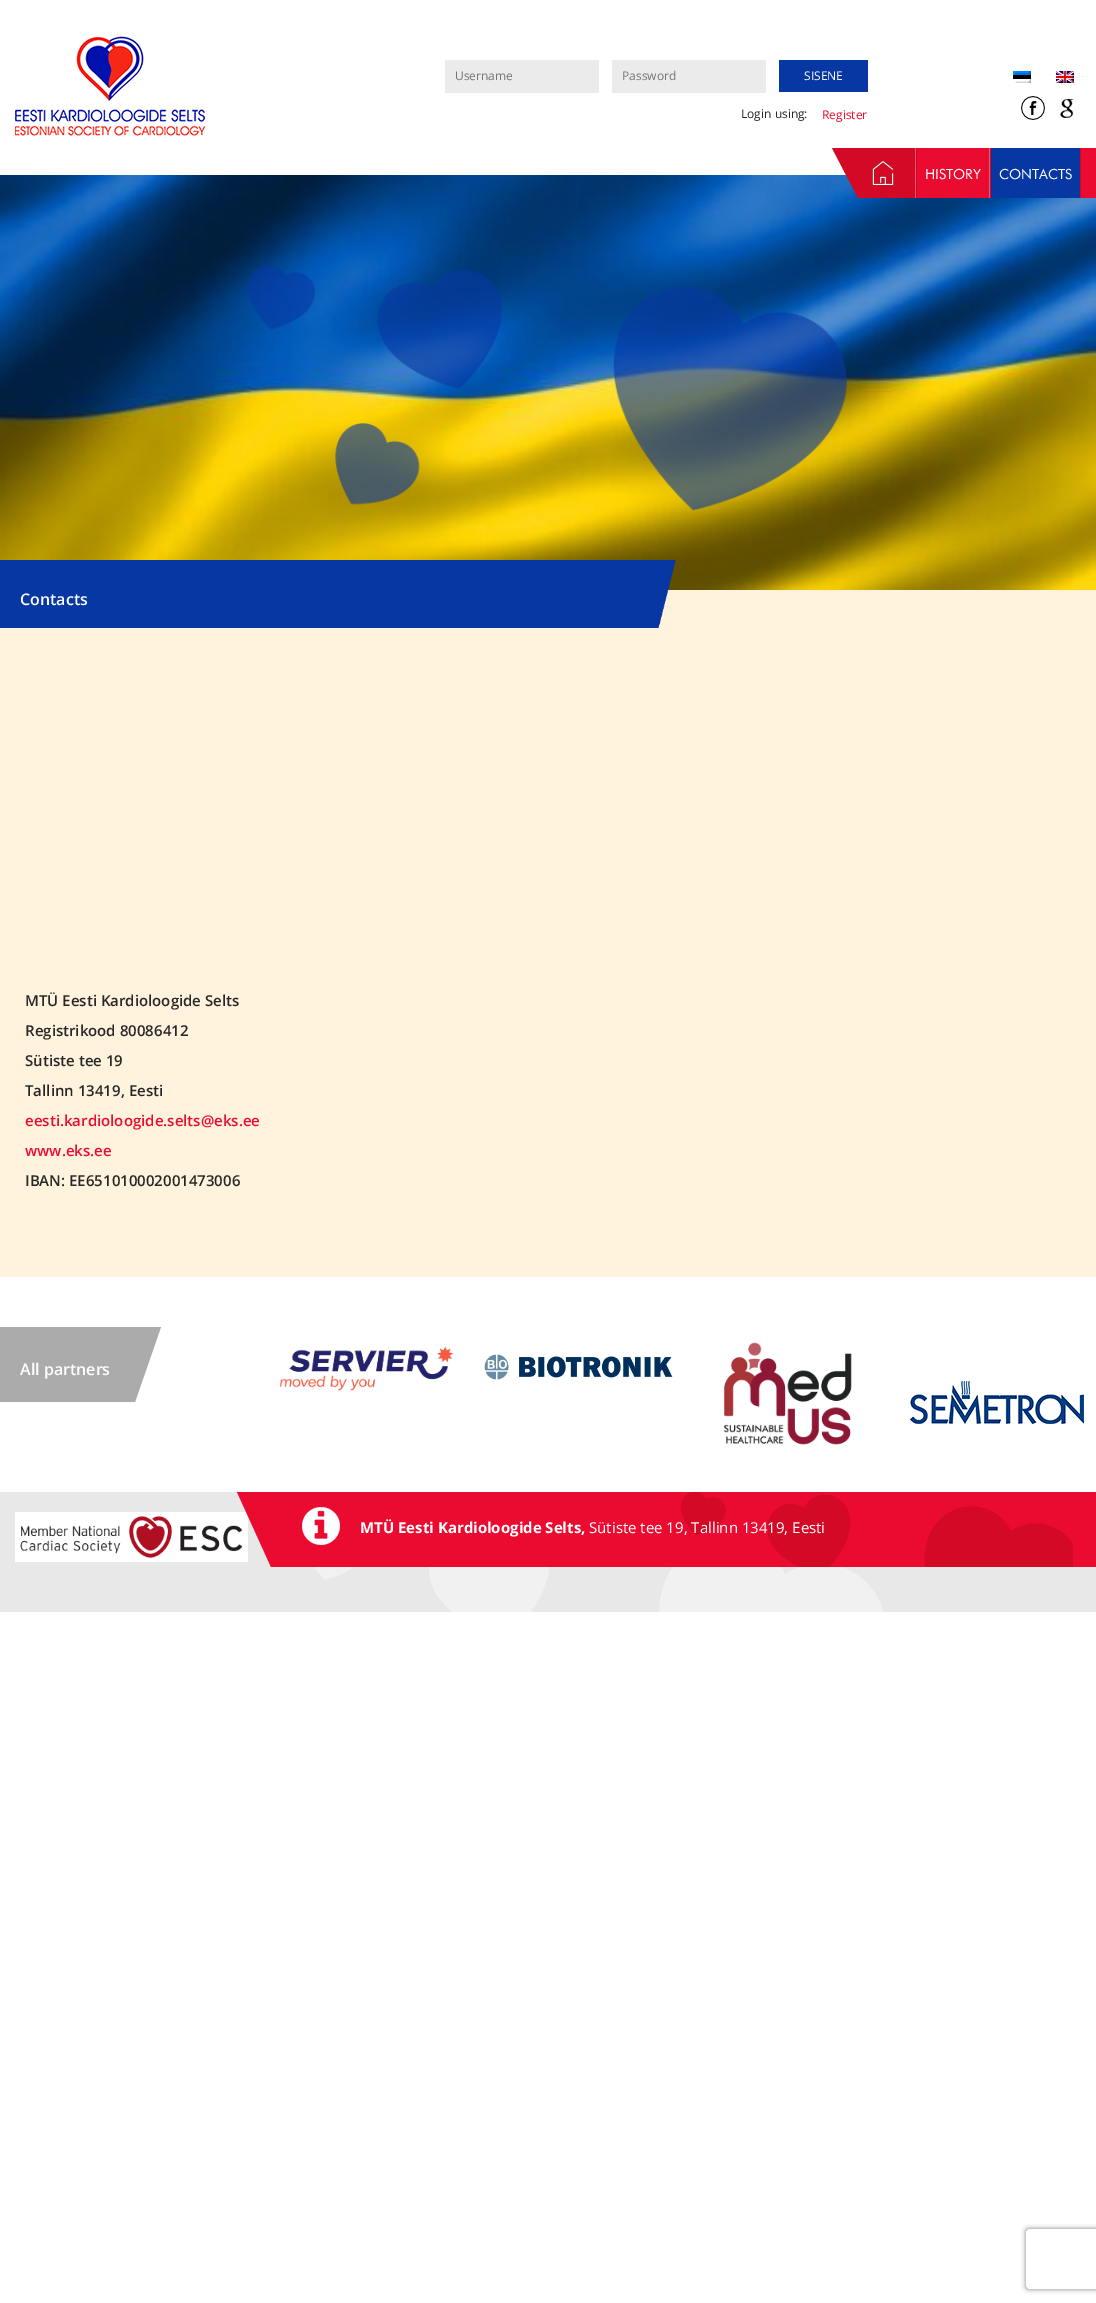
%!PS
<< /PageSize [1096 2303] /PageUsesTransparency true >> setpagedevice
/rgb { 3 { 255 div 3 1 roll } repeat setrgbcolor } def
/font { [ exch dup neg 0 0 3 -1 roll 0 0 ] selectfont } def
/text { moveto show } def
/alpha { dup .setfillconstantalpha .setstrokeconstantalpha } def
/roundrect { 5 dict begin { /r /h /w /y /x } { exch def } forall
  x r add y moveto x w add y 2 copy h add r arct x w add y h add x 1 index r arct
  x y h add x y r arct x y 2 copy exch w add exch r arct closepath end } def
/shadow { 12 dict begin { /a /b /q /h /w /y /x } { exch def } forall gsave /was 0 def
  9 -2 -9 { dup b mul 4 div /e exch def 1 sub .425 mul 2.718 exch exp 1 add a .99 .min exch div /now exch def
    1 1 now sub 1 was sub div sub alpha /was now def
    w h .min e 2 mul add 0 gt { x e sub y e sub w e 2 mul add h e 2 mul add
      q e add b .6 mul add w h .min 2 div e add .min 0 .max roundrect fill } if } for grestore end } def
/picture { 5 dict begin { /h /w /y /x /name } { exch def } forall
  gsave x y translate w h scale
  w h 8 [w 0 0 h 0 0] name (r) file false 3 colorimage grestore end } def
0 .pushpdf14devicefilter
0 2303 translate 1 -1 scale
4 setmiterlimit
255 255 255 rgb
0 0 1096 2303 rectfill
(img_01.rgb) 15 36 190 100 picture
235 235 235 rgb
445 60 154 33 rectfill
612 60 154 33 rectfill
7 55 163 rgb
779 60 89 32 rectfill
(img_02.rgb) 1013 71 18 12 picture
(img_03.rgb) 1056 71 18 12 picture
(img_04.rgb) 1021 96 24 24 picture
(img_05.rgb) 1060 99 14 19 picture
(img_07.rgb) 0 175 1096 415 picture
206 8 36 rgb
916 148 1 50 rectfill
211 9 38 rgb
832 148 moveto 84 0 rlineto 0 50 rlineto -58 0 rlineto closepath fill
(img_06.rgb) 872 161 22 24 picture
241 85 111 rgb
915 148 1 50 rectfill
235 11 48 rgb
917 148 72 50 rectfill
206 8 36 rgb
990 148 1 50 rectfill
241 85 111 rgb
989 148 1 50 rectfill
7 55 163 rgb
991 148 89 50 rectfill
206 8 36 rgb
1080 148 1 50 rectfill
235 11 48 rgb
1081 148 15 50 rectfill
(img_08.rgb) 248 265 600 246 picture
255 243 221 rgb
0 590 1096 687 rectfill
(img_09.rgb) 22 560 654 68 picture
7 55 163 rgb
0 560 22 68 rectfill
171 171 171 rgb
0 1327 115 75 rectfill
115 1327 moveto 46 0 rlineto -26 75 rlineto -20 0 rlineto closepath fill
(img_10.rgb) 279 1346 175 45 picture
(img_11.rgb) 484 1354 189 26 picture
(img_12.rgb) 723 1342 129 103 picture
(img_13.rgb) 910 1381 174 43 picture
(img_14.rgb) 0 1492 1096 120 picture
(img_15.rgb) 15 1512 233 50 picture
235 11 48 rgb
282 1492 814 75 rectfill
(img_16.rgb) 681 1492 392 75 picture
237 1492 moveto 45 0 rlineto 0 75 rlineto -11 0 rlineto closepath fill
(img_17.rgb) 302 1507 38 38 picture
gsave
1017 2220 moveto 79 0 rlineto 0 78 rlineto -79 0 rlineto closepath 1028 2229 moveto 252 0 rlineto 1 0 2 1 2 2 rcurveto 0 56 rlineto 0 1 -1 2 -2 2 rcurveto -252 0 rlineto -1 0 -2 -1 -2 -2 rcurveto 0 -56 rlineto 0 -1 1 -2 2 -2 rcurveto closepath eoclip newpath
128 128 128 rgb
1026 2229 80 60 2 2.5 1 shadow
grestore
/OpenSans-Regular 12 font
117 117 117 rgb
(Username) 455 80 text
(Password) 622 80 text
255 255 255 rgb
(SISENE) 804 80 text
39 39 39 rgb
(Login using:) 741 118 text
235 11 48 rgb
(Register) 822 119 text
/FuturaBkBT-Regular 14 font
255 255 255 rgb
(HISTORY) 925 179 text
(CONTACTS) 999 179 text
/OpenSans-SemiBold 16 font
(Contacts) 20 605 text
/OpenSans-SemiBold 15 font
39 39 39 rgb
(MTÜ Eesti Kardioloogide Selts) 25 1006 text
(Registrikood 80086412) 25 1036 text
(Sütiste tee 19) 25 1066 text
(Tallinn 13419, Eesti) 25 1096 text
235 11 48 rgb
(eesti.kardioloogide.selts@eks.ee) 25 1126 text
(www.eks.ee) 25 1156 text
39 39 39 rgb
(IBAN: EE651010002001473006) 25 1186 text
/OpenSans-SemiBold 16 font
255 255 255 rgb
(All partners) 20 1375 text
/OpenSans-Bold 15 font
(MTÜ Eesti Kardioloogide Selts,) 360 1533 text
/OpenSans-Regular 15 font
(Sütiste tee 19, Tallinn 13419, Eesti) 589 1533 text
.poppdf14devicefilter showpage
